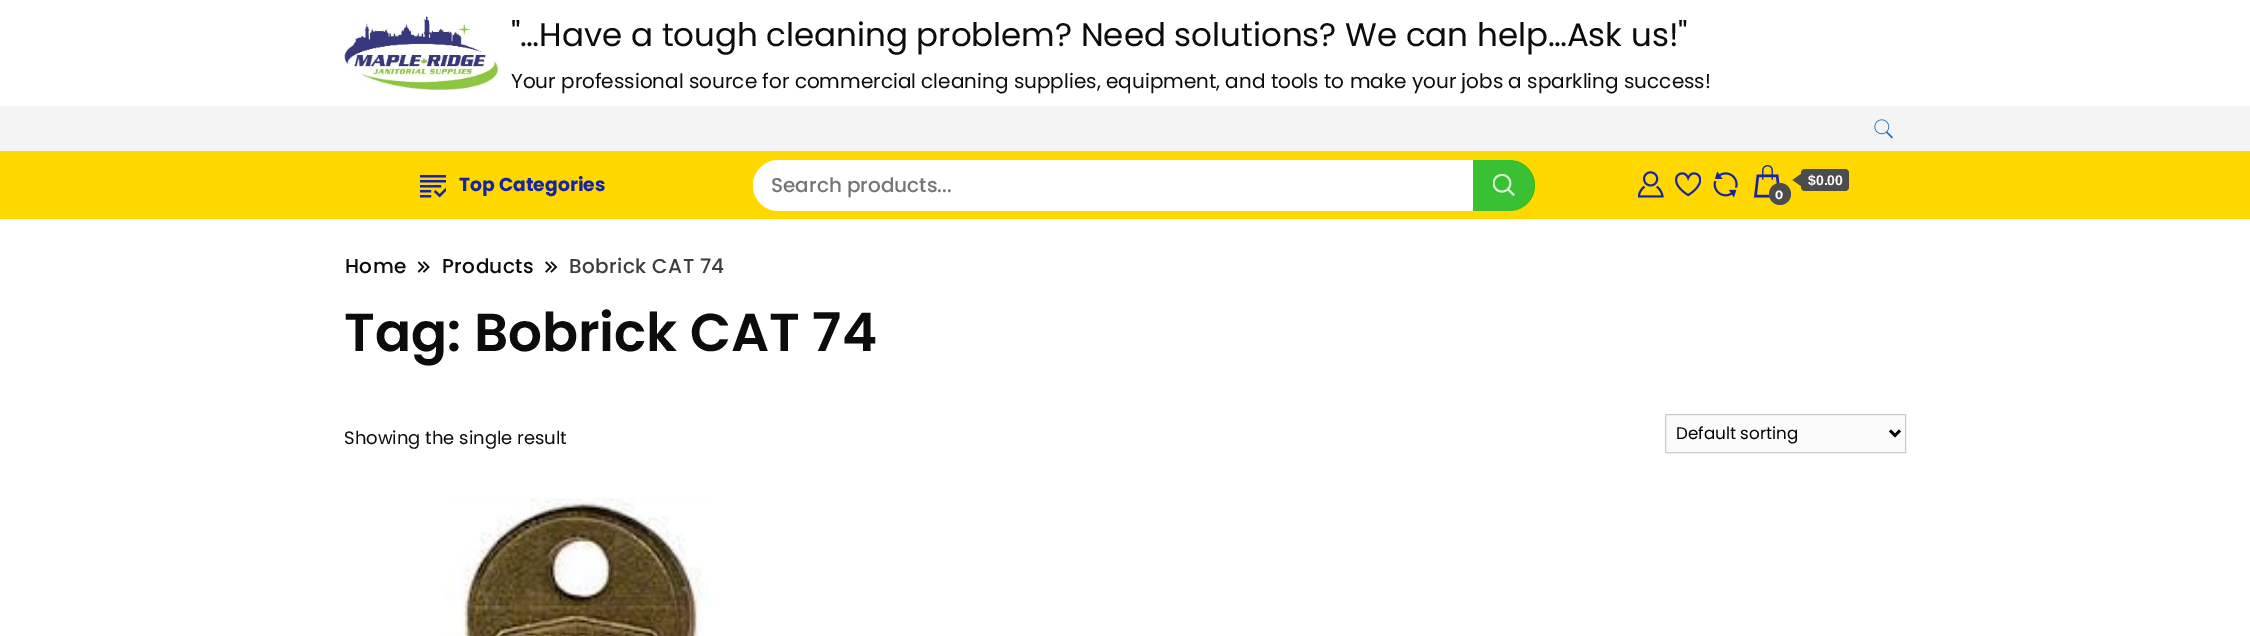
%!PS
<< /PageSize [2250 636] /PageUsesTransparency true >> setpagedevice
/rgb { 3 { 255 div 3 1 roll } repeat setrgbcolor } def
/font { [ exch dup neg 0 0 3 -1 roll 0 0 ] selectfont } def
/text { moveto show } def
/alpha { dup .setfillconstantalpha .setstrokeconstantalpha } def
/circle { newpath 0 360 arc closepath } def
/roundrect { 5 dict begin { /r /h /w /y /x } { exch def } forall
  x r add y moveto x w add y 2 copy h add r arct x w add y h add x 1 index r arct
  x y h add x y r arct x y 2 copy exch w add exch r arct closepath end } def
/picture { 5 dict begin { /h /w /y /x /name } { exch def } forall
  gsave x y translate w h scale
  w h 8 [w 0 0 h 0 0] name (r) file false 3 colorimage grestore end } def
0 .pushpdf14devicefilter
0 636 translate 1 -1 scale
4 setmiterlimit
255 255 255 rgb
0 0 2250 636 rectfill
(img_01.rgb) 344 16 155 74 picture
244 244 244 rgb
0 106 2250 45 rectfill
(img_02.rgb) 1874 119 19 20 picture
255 216 0 rgb
0 152 2250 67 rectfill
232 213 106 rgb
0 151 2250 1 rectfill
(img_03.rgb) 420 175 26 23 picture
255 255 255 rgb
753 160 781 51 25.5 roundrect fill
0.8 alpha
9 176 0 rgb
1473 160 moveto 36.5 0 rlineto 14 0 25.5 11.5 25.5 25.5 rcurveto 0 14 -11.5 25.5 -25.5 25.5 rcurveto -36.5 0 rlineto closepath fill
1 alpha
(img_04.rgb) 1493 174 22 22 picture
(img_05.rgb) 1638 171 26 27 picture
(img_06.rgb) 1675 172 26 25 picture
(img_07.rgb) 1713 171 25 27 picture
(img_08.rgb) 1754 165 26 33 picture
76 76 76 rgb
1801 169 48 22 4 roundrect fill
1801 174 moveto 0 12 rlineto -8.5 -6 rlineto closepath fill
1780 194 11 circle fill
(img_09.rgb) 418 261 12 12 picture
(img_10.rgb) 545 261 13 12 picture
251 251 251 rgb
1665.5 414.5 moveto 240 0 rlineto 0 38 rlineto -240 0 rlineto closepath gsave fill grestore
204 204 204 rgb
stroke
0 0 0 rgb
2.5 setlinewidth
1890 430.5 moveto 5 5 rlineto 5 -5 rlineto stroke
(img_11.rgb) 446 498 264 138 picture
/Poppins-Regular 32.5 font
12 12 12 rgb
("…Have a tough cleaning problem? Need solutions? We can help…Ask us!") 511 46 text
/Poppins-Regular 20 font
(Your professional source for commercial cleaning supplies, equipment, and tools to make your jobs a sparkling success!) 511 88 text
/Poppins-Bold 18.75 font
22 36 163 rgb
(Top Categories) 459 191 text
/Poppins-Medium 20 font
117 117 117 rgb
(Search products...) 771 192 text
/LiberationSans-Bold 14 font
255 255 255 rgb
($0.00) 1808 185 text
/Montserrat-Bold 12 font
(0) 1775 199 text
/Poppins-Medium 20 font
12 12 12 rgb
345 273 moveto 0.4 0 (Home) ashow
442 273 moveto 0.4 0 (Products) ashow
61 61 61 rgb
569 273 moveto 0.4 0 (Bobrick CAT 74) ashow
/Poppins-SemiBold 53.25 font
12 12 12 rgb
(Tag: Bobrick CAT 74) 344 351 text
/Poppins-Regular 18 font
(Showing the single result) 344 444 text
/Poppins-Regular 16.75 font
0 0 0 rgb
(Default sorting) 1676 439 text
.poppdf14devicefilter showpage
